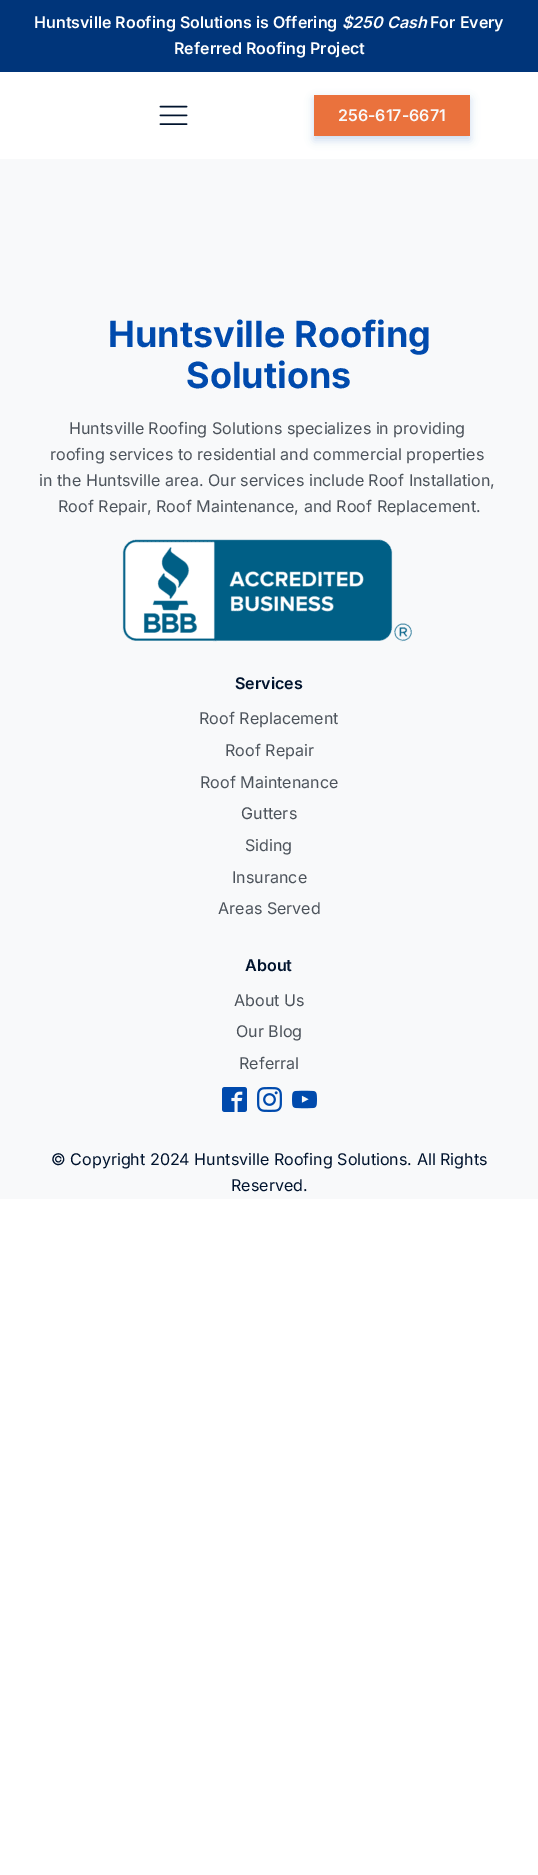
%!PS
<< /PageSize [538 1875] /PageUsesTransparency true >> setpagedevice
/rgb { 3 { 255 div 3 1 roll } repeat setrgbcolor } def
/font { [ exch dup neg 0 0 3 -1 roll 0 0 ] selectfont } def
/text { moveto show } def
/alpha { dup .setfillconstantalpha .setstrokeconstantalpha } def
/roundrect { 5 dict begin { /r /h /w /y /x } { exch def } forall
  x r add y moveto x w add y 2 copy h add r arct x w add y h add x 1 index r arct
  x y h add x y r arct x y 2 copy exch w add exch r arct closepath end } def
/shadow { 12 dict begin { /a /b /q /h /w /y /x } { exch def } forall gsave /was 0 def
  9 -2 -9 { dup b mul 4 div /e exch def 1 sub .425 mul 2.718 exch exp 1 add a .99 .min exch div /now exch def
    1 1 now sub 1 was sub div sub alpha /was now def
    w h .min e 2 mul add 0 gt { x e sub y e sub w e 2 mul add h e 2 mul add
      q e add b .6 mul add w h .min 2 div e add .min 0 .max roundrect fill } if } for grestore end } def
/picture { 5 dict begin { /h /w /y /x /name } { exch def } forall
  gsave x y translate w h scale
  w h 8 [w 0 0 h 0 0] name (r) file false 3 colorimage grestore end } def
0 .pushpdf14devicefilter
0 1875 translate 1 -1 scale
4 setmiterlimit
255 255 255 rgb
0 0 538 1875 rectfill
0 53 122 rgb
0 0 538 72 rectfill
(img_01.rgb) 159 105 29 20 picture
0 74 173 rgb
314 99 156 41 0 4.5 0.2 shadow
234 114 61 rgb
314 95 156 41 rectfill
248 249 250 rgb
0 159 538 1040 rectfill
(img_02.rgb) 122 539 290 103 picture
(img_03.rgb) 222 1087 25 25 picture
(img_04.rgb) 257 1087 25 25 picture
(img_05.rgb) 292 1090 25 19 picture
/Inter-SemiBold 16 font
255 255 255 rgb
(Huntsville Roofing Solutions is Offering) 34 28 text
/Inter-SemiBoldItalic 16 font
($250 Cash) 342 28 text
/Inter-SemiBold 16 font
(For Every) 430 28 text
(Referred Roofing Project) 174 54 text
249 249 250 rgb
(256-617-6671) 338 121 text
/Inter-Bold 36 font
0 74 173 rgb
(Huntsville Roofing) 108 347 text
(Solutions) 186 388 text
/Inter-Regular 16.1 font
76 83 91 rgb
(Huntsville Roofing Solutions specializes in providing) 69 434 text
(roofing services to residential and commercial properties) 50 460 text
(in the Huntsville area. Our services include Roof Installation,) 39 486 text
(Roof Repair, Roof Maintenance, and Roof Replacement.) 58 512 text
/Inter-SemiBold 16.1 font
0 19 45 rgb
(Services) 235 689 text
/Inter-Regular 16.1 font
76 83 91 rgb
(Roof Replacement) 199 724 text
(Roof Repair) 225 756 text
(Roof Maintenance) 200 788 text
(Gutters) 241 819 text
(Siding) 245 851 text
(Insurance) 232 883 text
(Areas Served) 218 914 text
/Inter-SemiBold 16.1 font
0 19 45 rgb
(About) 245 971 text
/Inter-Regular 16.1 font
76 83 91 rgb
(About Us) 234 1006 text
(Our Blog) 236 1037 text
(Referral) 239 1069 text
0 19 45 rgb
(© Copyright 2024 Huntsville Roofing Solutions. All Rights) 51 1165 text
(Reserved.) 231 1191 text
.poppdf14devicefilter showpage
